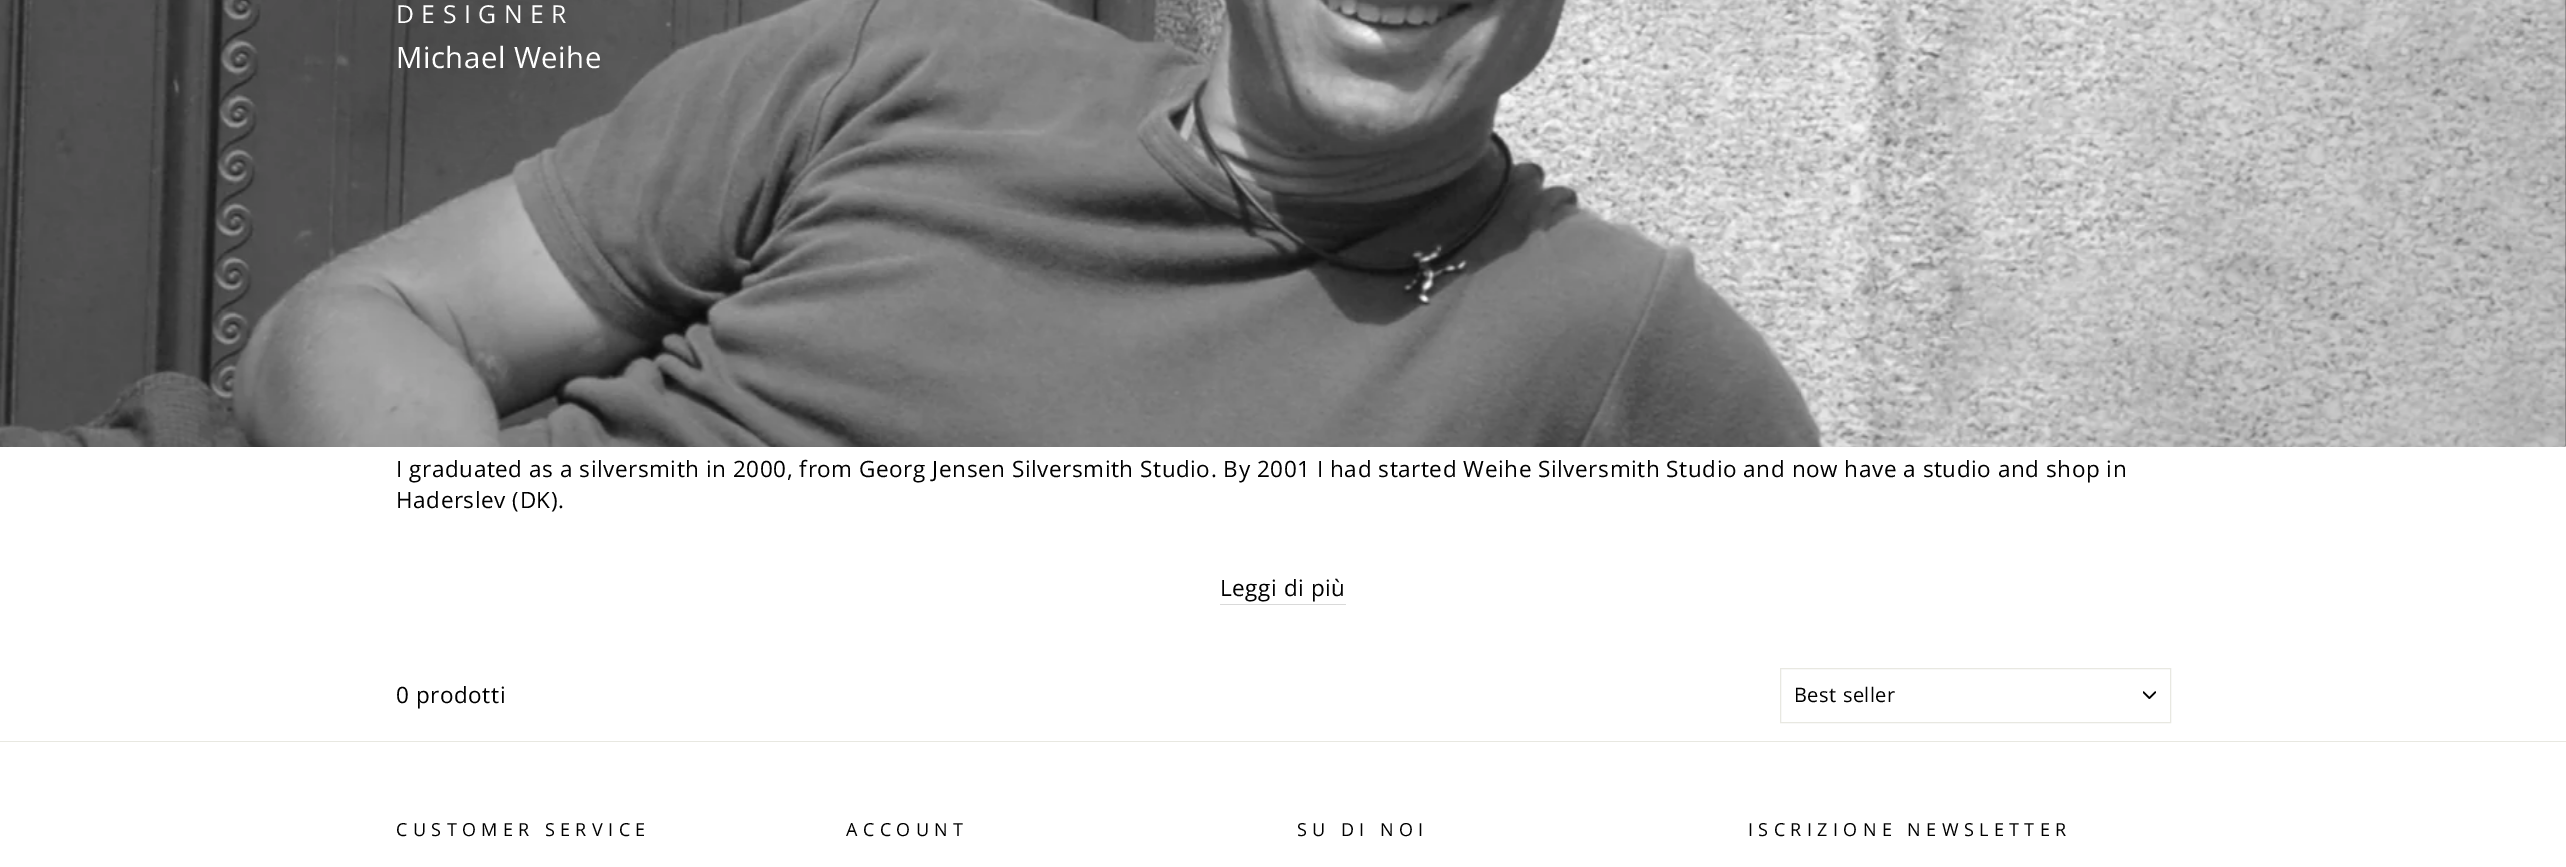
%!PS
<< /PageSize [2566 867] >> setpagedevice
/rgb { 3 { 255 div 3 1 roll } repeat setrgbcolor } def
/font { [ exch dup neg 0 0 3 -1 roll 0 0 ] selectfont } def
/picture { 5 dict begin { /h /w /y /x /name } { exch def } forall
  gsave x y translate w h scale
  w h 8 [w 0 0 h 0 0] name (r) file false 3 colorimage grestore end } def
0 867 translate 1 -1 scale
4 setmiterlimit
255 255 255 rgb
0 0 2566 867 rectfill
(img_01.rgb) 0 0 2566 447 picture
217 217 217 rgb
1220 604 126 1 rectfill
(img_02.rgb) 2143 691 13 8 picture
232 232 225 rgb
1780.5 668.5 390 54 rectstroke
0 741 2566 1 rectfill
/OpenSans-Regular 24.75 font
255 255 255 rgb
396 23 moveto 7.5 0 (DESIGNER) ashow
/OpenSans-Regular 29.25 font
396 68 moveto 0.56 0 (Michael Weihe) ashow
/OpenSans-Regular 22.5 font
0 0 0 rgb
396 477 moveto 0.56 0 (I graduated as a silversmith in 2000, from Georg Jensen Silversmith Studio. By 2001 I had started Weihe Silversmith Studio and now have a studio and shop in) ashow
396 508 moveto 0.56 0 (Haderslev \(DK\).) ashow
1220 596 moveto 0.56 0 (Leggi di più) ashow
396 703 moveto 0.56 0 (0 prodotti) ashow
/OpenSans-Regular 20 font
1794 702 moveto 0.5 0 (Best seller) ashow
/OpenSans-Regular 18 font
396 836 moveto 5.4 0 (CUSTOMER SERVICE) ashow
846 836 moveto 5.4 0 (ACCOUNT) ashow
1297 836 moveto 5.4 0 (SU DI NOI) ashow
1748 836 moveto 5.4 0 (ISCRIZIONE NEWSLETTER) ashow
showpage
